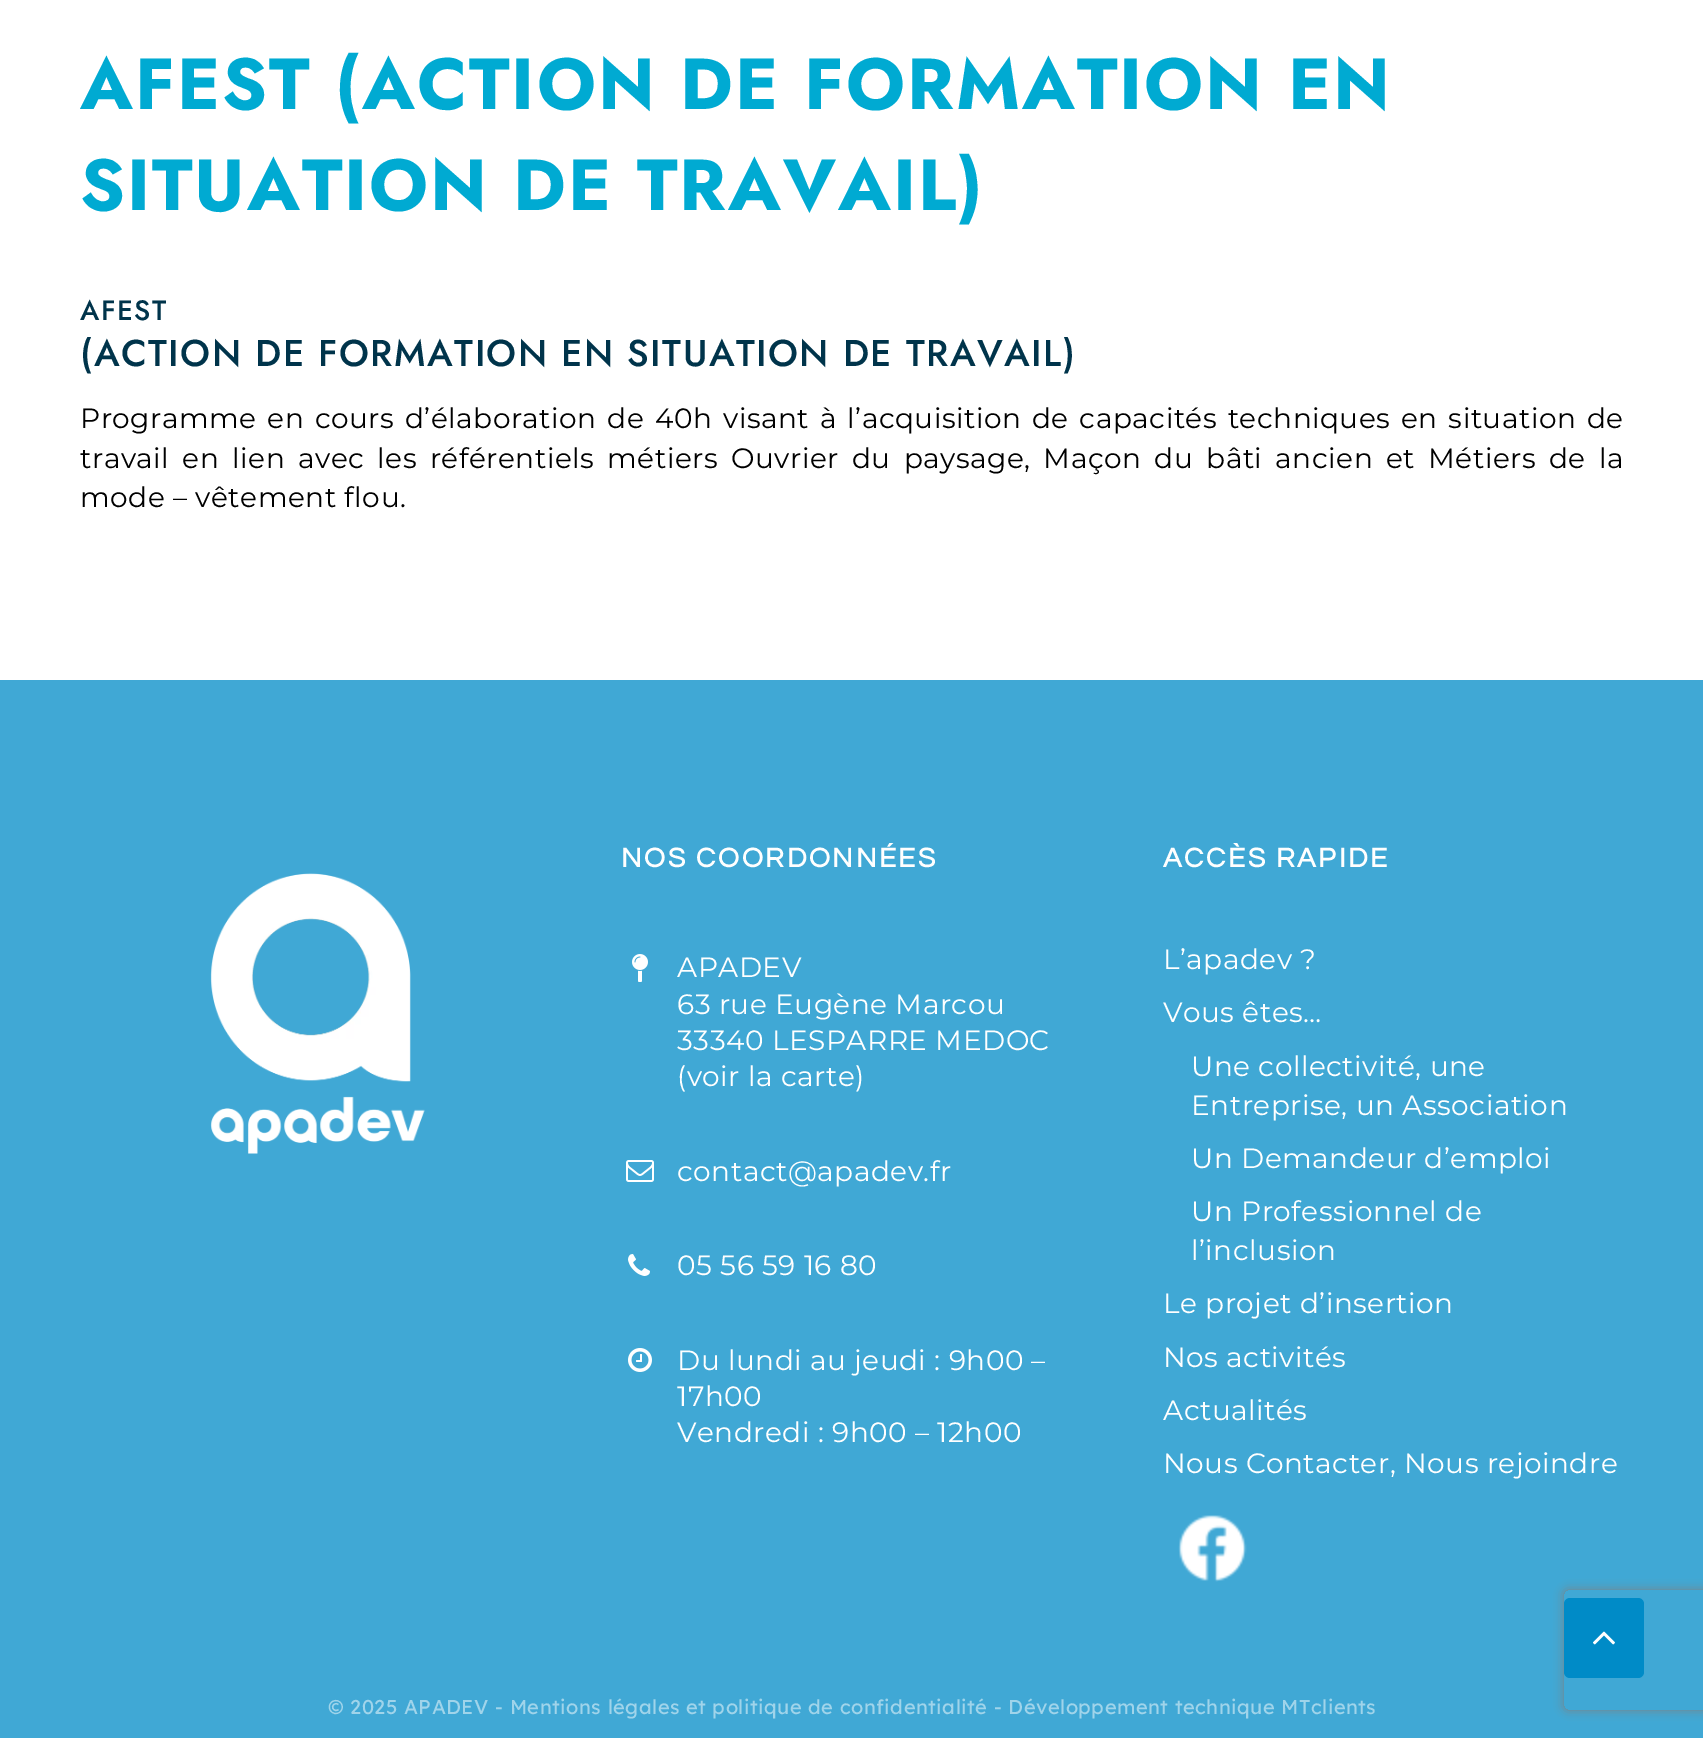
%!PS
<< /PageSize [1703 1738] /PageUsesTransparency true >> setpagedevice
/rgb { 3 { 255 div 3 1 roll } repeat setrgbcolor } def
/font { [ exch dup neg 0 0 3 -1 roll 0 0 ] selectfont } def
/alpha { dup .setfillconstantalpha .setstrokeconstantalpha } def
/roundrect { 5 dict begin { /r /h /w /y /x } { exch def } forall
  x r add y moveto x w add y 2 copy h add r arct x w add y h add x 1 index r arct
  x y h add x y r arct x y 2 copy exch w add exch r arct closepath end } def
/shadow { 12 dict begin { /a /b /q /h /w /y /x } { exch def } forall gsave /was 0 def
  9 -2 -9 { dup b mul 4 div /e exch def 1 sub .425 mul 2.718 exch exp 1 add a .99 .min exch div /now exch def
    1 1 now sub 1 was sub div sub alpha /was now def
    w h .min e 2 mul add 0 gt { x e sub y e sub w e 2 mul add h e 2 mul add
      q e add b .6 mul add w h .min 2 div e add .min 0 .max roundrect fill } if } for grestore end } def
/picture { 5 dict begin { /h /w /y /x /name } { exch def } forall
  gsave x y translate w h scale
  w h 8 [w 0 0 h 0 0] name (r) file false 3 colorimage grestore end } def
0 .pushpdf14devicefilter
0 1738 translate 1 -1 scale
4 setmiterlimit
255 255 255 rgb
0 0 1703 1738 rectfill
64 168 213 rgb
0 680 1703 1058 rectfill
(img_01.rgb) 210 873 215 281 picture
(img_02.rgb) 632 954 16 28 picture
(img_03.rgb) 626 1160 28 22 picture
(img_04.rgb) 628 1254 22 22 picture
(img_05.rgb) 628 1348 24 24 picture
(img_06.rgb) 1178 1515 69 67 picture
gsave
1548 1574 moveto 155 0 rlineto 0 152 rlineto -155 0 rlineto closepath 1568 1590 moveto 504 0 rlineto 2 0 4 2 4 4 rcurveto 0 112 rlineto 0 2 -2 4 -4 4 rcurveto -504 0 rlineto -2 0 -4 -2 -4 -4 rcurveto 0 -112 rlineto 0 -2 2 -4 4 -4 rcurveto closepath eoclip newpath
128 128 128 rgb
1564 1590 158 120 4 5 1 shadow
grestore
0 139 199 rgb
1564 1598 80 80 6 roundrect fill
(img_07.rgb) 1593 1631 22 14 picture
/Jost-Bold 72 font
0 170 210 rgb
80 109 moveto 2 0 (AFEST \(ACTION DE FORMATION EN) ashow
80 210 moveto 2 0 (SITUATION DE TRAVAIL\)) ashow
/Jost-Medium 28 font
0 52 75 rgb
80 320 moveto 1.5 0 (AFEST) ashow
/Jost-Medium 37.3 font
80 366 moveto 1.5 0 (\(ACTION DE FORMATION EN SITUATION DE TRAVAIL\)) ashow
/Montserrat-Regular 28 font
0 0 0 rgb
80 428 moveto 2.75 0 32 0.5 0 (Programme en cours d’élaboration de 40h visant à l’acquisition de capacités techniques en situation de) awidthshow
80 468 moveto 5.1 0 32 0.5 0 (travail en lien avec les référentiels métiers Ouvrier du paysage, Maçon du bâti ancien et Métiers de la) awidthshow
80 507 moveto 0.5 0 (mode – vêtement flou.) ashow
/Questrial-Bold 28 font
255 255 255 rgb
621 867 moveto 2.6 0 (NOS COORDONNÉES) ashow
/Montserrat-Regular 28 font
677 977 moveto 0.5 0 (APADEV) ashow
677 1014 moveto 0.5 0 (63 rue Eugène Marcou) ashow
677 1050 moveto 0.5 0 (33340 LESPARRE MEDOC) ashow
677 1086 moveto 0.5 0 (\(voir la carte\)) ashow
677 1181 moveto 0.5 0 (contact@apadev.fr) ashow
677 1275 moveto 0.5 0 (05 56 59 16 80) ashow
677 1370 moveto 0.5 0 (Du lundi au jeudi : 9h00 –) ashow
677 1406 moveto 0.5 0 (17h00) ashow
677 1442 moveto 0.5 0 (Vendredi : 9h00 – 12h00) ashow
/Questrial-Bold 28 font
1163 867 moveto 2.6 0 (ACCÈS RAPIDE) ashow
/Montserrat-Regular 28 font
1163 969 moveto 0.5 0 (L’apadev ?) ashow
1163 1022 moveto 0.5 0 (Vous êtes…) ashow
1191 1076 moveto 0.5 0 (Une collectivité, une) ashow
1191 1115 moveto 0.5 0 (Entreprise, un Association) ashow
1191 1168 moveto 0.5 0 (Un Demandeur d’emploi) ashow
1191 1221 moveto 0.5 0 (Un Professionnel de) ashow
1191 1260 moveto 0.5 0 (l’inclusion) ashow
1163 1313 moveto 0.5 0 (Le projet d’insertion) ashow
1163 1367 moveto 0.5 0 (Nos activités) ashow
1163 1420 moveto 0.5 0 (Actualités) ashow
1163 1473 moveto 0.5 0 (Nous Contacter, Nous rejoindre) ashow
/Lexend-Regular 20 font
160 212 234 rgb
328 1714 moveto 0.5 0 (© 2025 APADEV - Mentions légales et politique de confidentialité - Développement technique MTclients) ashow
.poppdf14devicefilter showpage
